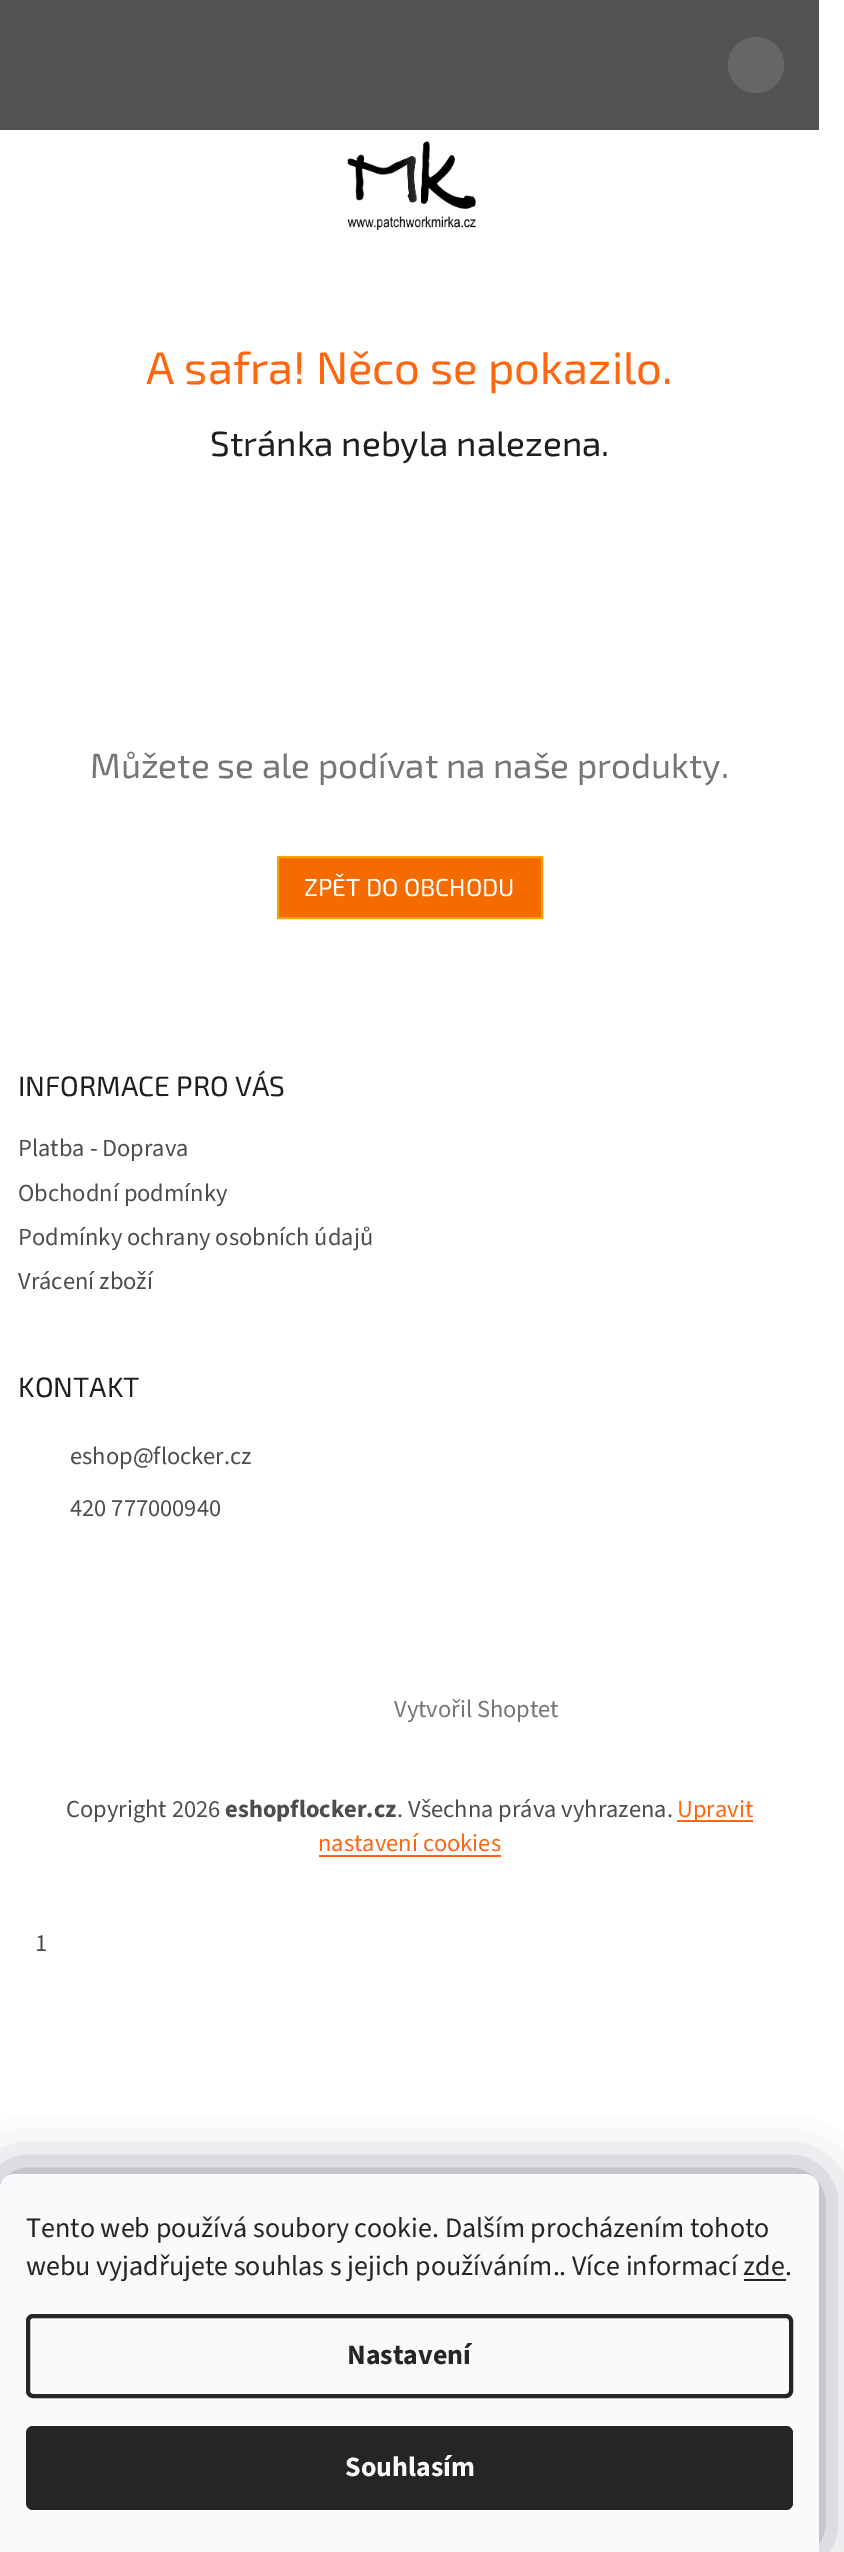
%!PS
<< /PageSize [844 2552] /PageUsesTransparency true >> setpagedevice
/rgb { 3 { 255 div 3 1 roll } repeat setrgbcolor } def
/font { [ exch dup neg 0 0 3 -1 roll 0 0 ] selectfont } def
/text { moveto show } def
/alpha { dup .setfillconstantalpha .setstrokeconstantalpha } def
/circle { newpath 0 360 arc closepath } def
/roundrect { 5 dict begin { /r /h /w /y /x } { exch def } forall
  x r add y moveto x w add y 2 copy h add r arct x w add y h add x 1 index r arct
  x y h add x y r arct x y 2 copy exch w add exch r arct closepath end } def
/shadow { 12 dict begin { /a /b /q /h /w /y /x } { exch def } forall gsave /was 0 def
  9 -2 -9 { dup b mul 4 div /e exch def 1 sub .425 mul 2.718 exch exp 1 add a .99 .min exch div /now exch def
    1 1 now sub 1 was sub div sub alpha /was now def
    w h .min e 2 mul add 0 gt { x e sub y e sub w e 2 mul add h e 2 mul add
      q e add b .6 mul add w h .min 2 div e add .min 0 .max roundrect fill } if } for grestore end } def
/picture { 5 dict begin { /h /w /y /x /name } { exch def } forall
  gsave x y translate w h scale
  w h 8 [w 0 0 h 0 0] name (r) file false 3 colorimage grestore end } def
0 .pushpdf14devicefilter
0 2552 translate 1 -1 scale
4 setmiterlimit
255 255 255 rgb
0 0 844 2552 rectfill
83 83 83 rgb
0 0 819 130 rectfill
102 102 102 rgb
756 65 28 circle fill
(img_01.rgb) 347 141 129 89 picture
245 107 0 rgb
278 857 moveto 264 0 rlineto 0 61 rlineto -264 0 rlineto closepath gsave fill grestore
248 161 2 rgb
2 setlinewidth
stroke
255 102 14 rgb
677 1820 76 2 rectfill
319 1855 182 2 rectfill
27 25 57 rgb
0 2174 819 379 14 26 0.5 shadow
248 250 251 rgb
14 2174 moveto 791 0 rlineto 7.5 0 14 6.5 14 14 rcurveto 0 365 rlineto -819 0 rlineto 0 -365 rlineto 0 -7.5 6.5 -14 14 -14 rcurveto closepath fill
37 37 37 rgb
744 2279 42 2 rectfill
4 setlinewidth
28 2316 763 80 5 roundrect stroke
26 2426 767 84 7 roundrect fill
/Exo2-Regular 45.5 font
255 102 14 rgb
(A safra! Něco se pokazilo.) 146 384 text
/Exo2-Regular 35 font
31 31 31 rgb
(Stránka nebyla nalezena.) 210 456 text
118 118 118 rgb
(Můžete se ale podívat na naše produkty.) 90 778 text
/Exo2-Regular 24.5 font
255 255 255 rgb
(ZPĚT DO OBCHODU) 304 896 text
/Exo2-Regular 28 font
31 31 31 rgb
(INFORMACE PRO VÁS) 18 1096 text
/SourceSans3-Regular 24.5 font
77 77 77 rgb
(Platba - Doprava) 18 1156 text
(Obchodní podmínky) 18 1201 text
(Podmínky ochrany osobních údajů) 18 1245 text
(Vrácení zboží) 18 1289 text
/Exo2-Regular 28 font
31 31 31 rgb
(KONTAKT) 18 1397 text
/SourceSans3-Regular 24.5 font
77 77 77 rgb
(eshop@flocker.cz) 70 1464 text
(420 777000940) 70 1516 text
118 118 118 rgb
(Vytvořil Shoptet) 394 1717 text
77 77 77 rgb
(Copyright 2026) 66 1817 text
/SourceSans3-Bold 24.5 font
(eshopflocker.cz) 225 1817 text
/SourceSans3-Regular 24.5 font
(. Všechna práva vyhrazena.) 397 1817 text
255 102 14 rgb
(Upravit) 677 1817 text
(nastavení cookies) 318 1851 text
77 77 77 rgb
(1) 35 1951 text
/SourceSans3-Regular 28 font
37 37 37 rgb
(Tento web používá soubory cookie. Dalším procházením tohoto) 26 2237 text
(webu vyjadřujete souhlas s jejich používáním.. Více informací zde.) 26 2275 text
/SourceSans3-Bold 28 font
(Nastavení) 347 2364 text
248 250 251 rgb
(Souhlasím) 345 2476 text
.poppdf14devicefilter showpage
